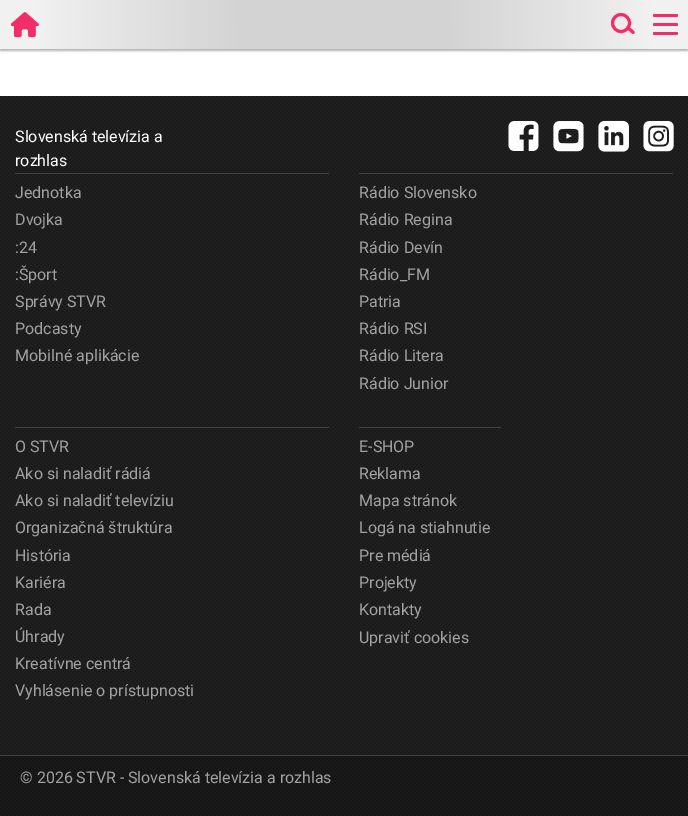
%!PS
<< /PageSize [688 816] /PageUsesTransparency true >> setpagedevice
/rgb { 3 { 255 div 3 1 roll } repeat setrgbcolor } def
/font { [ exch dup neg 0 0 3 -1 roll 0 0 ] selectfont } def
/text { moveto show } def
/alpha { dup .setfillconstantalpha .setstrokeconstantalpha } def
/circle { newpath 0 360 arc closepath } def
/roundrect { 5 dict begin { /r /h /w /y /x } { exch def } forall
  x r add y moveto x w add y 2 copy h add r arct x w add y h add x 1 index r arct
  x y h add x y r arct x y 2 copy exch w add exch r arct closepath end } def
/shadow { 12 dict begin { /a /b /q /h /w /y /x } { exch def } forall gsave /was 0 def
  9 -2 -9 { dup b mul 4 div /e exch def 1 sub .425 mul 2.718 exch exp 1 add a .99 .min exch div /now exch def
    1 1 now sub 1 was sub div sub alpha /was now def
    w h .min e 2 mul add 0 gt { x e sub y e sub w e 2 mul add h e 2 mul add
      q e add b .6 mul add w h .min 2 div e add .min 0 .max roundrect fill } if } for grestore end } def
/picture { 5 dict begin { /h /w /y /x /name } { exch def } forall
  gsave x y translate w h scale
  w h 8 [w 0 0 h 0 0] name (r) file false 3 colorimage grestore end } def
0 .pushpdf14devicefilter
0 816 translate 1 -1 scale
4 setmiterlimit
255 255 255 rgb
0 0 688 816 rectfill
0 0 0 rgb
0 2 688 49 0 1 0.3 shadow
gsave 0 0 moveto 688 0 rlineto 0 49 rlineto -688 0 rlineto closepath clip newpath
<< /ShadingType 2 /ColorSpace /DeviceRGB /Coords [0 25 688 24] /Extend [true true] /Function << /FunctionType 3 /Domain [0 1] /Functions [<< /FunctionType 2 /Domain [0 1] /C0 [0.945 0.945 0.945] /C1 [0.945 0.945 0.945] /N 1 >> << /FunctionType 2 /Domain [0 1] /C0 [0.945 0.945 0.945] /C1 [0.827 0.827 0.827] /N 1 >> << /FunctionType 2 /Domain [0 1] /C0 [0.827 0.827 0.827] /C1 [0.831 0.831 0.831] /N 1 >> << /FunctionType 2 /Domain [0 1] /C0 [0.831 0.831 0.831] /C1 [0.827 0.827 0.827] /N 1 >> << /FunctionType 2 /Domain [0 1] /C0 [0.827 0.827 0.827] /C1 [0.945 0.945 0.945] /N 1 >> << /FunctionType 2 /Domain [0 1] /C0 [0.945 0.945 0.945] /C1 [0.945 0.945 0.945] /N 1 >>] /Bounds [0.05 0.35 0.5 0.65 0.95] /Encode [0 1 0 1 0 1 0 1 0 1 0 1] >> >> shfill grestore
(img_01.rgb) 11 12 28 26 picture
241 46 104 rgb
3 setlinewidth
621 23 8.5 circle stroke
629 26.5 moveto 5.5 5 rlineto 1 1.5 -1 3 -2.5 2 rcurveto -5.5 -5 rlineto -1 -1 1 -3 2.5 -2 rcurveto closepath fill
653 14 25 3 1.5 roundrect fill
653 23 25 3 1.5 roundrect fill
653 32 25 3 1.5 roundrect fill
(img_02.rgb) 0 96 688 720 picture
(img_03.rgb) 508 121 31 30 picture
(img_04.rgb) 553 121 31 31 picture
(img_05.rgb) 598 120 31 32 picture
(img_06.rgb) 643 121 31 31 picture
66 66 66 rgb
15 173 314 1 rectfill
359 173 314 1 rectfill
15 427 314 1 rectfill
359 427 142 1 rectfill
0.2 alpha
0 0 0 rgb
0 756 688 60 rectfill
1 alpha
66 66 66 rgb
0 755 688 1 rectfill
/Roboto-Regular 16 font
255 255 255 rgb
(Slovenská televízia a) 15 142 text
(rozhlas) 15 166 text
161 161 161 rgb
(Jednotka) 15 198 text
(Dvojka) 15 225 text
(:24) 15 253 text
(:Šport) 15 280 text
(Správy STVR) 15 307 text
(Podcasty) 15 334 text
(Mobilné aplikácie) 15 361 text
(Rádio Slovensko) 359 198 text
(Rádio Regina) 359 225 text
(Rádio Devín) 359 253 text
(Rádio_FM) 359 280 text
(Patria) 359 307 text
(Rádio RSI) 359 334 text
(Rádio Litera) 359 361 text
(Rádio Junior) 359 389 text
(O STVR) 15 452 text
(Ako si naladiť rádiá) 15 479 text
(Ako si naladiť televíziu) 15 506 text
(Organizačná štruktúra) 15 533 text
(História) 15 561 text
(Kariéra) 15 588 text
(Rada) 15 615 text
(Úhrady) 15 642 text
(Kreatívne centrá) 15 669 text
(Vyhlásenie o prístupnosti) 15 696 text
(E-SHOP) 359 452 text
(Reklama) 359 479 text
(Mapa stránok) 359 506 text
(Logá na stiahnutie) 359 533 text
(Pre médiá) 359 561 text
(Projekty) 359 588 text
(Kontakty) 359 615 text
(Upraviť cookies) 359 643 text
(© 2026 STVR - Slovenská televízia a rozhlas) 20 783 text
.poppdf14devicefilter showpage
